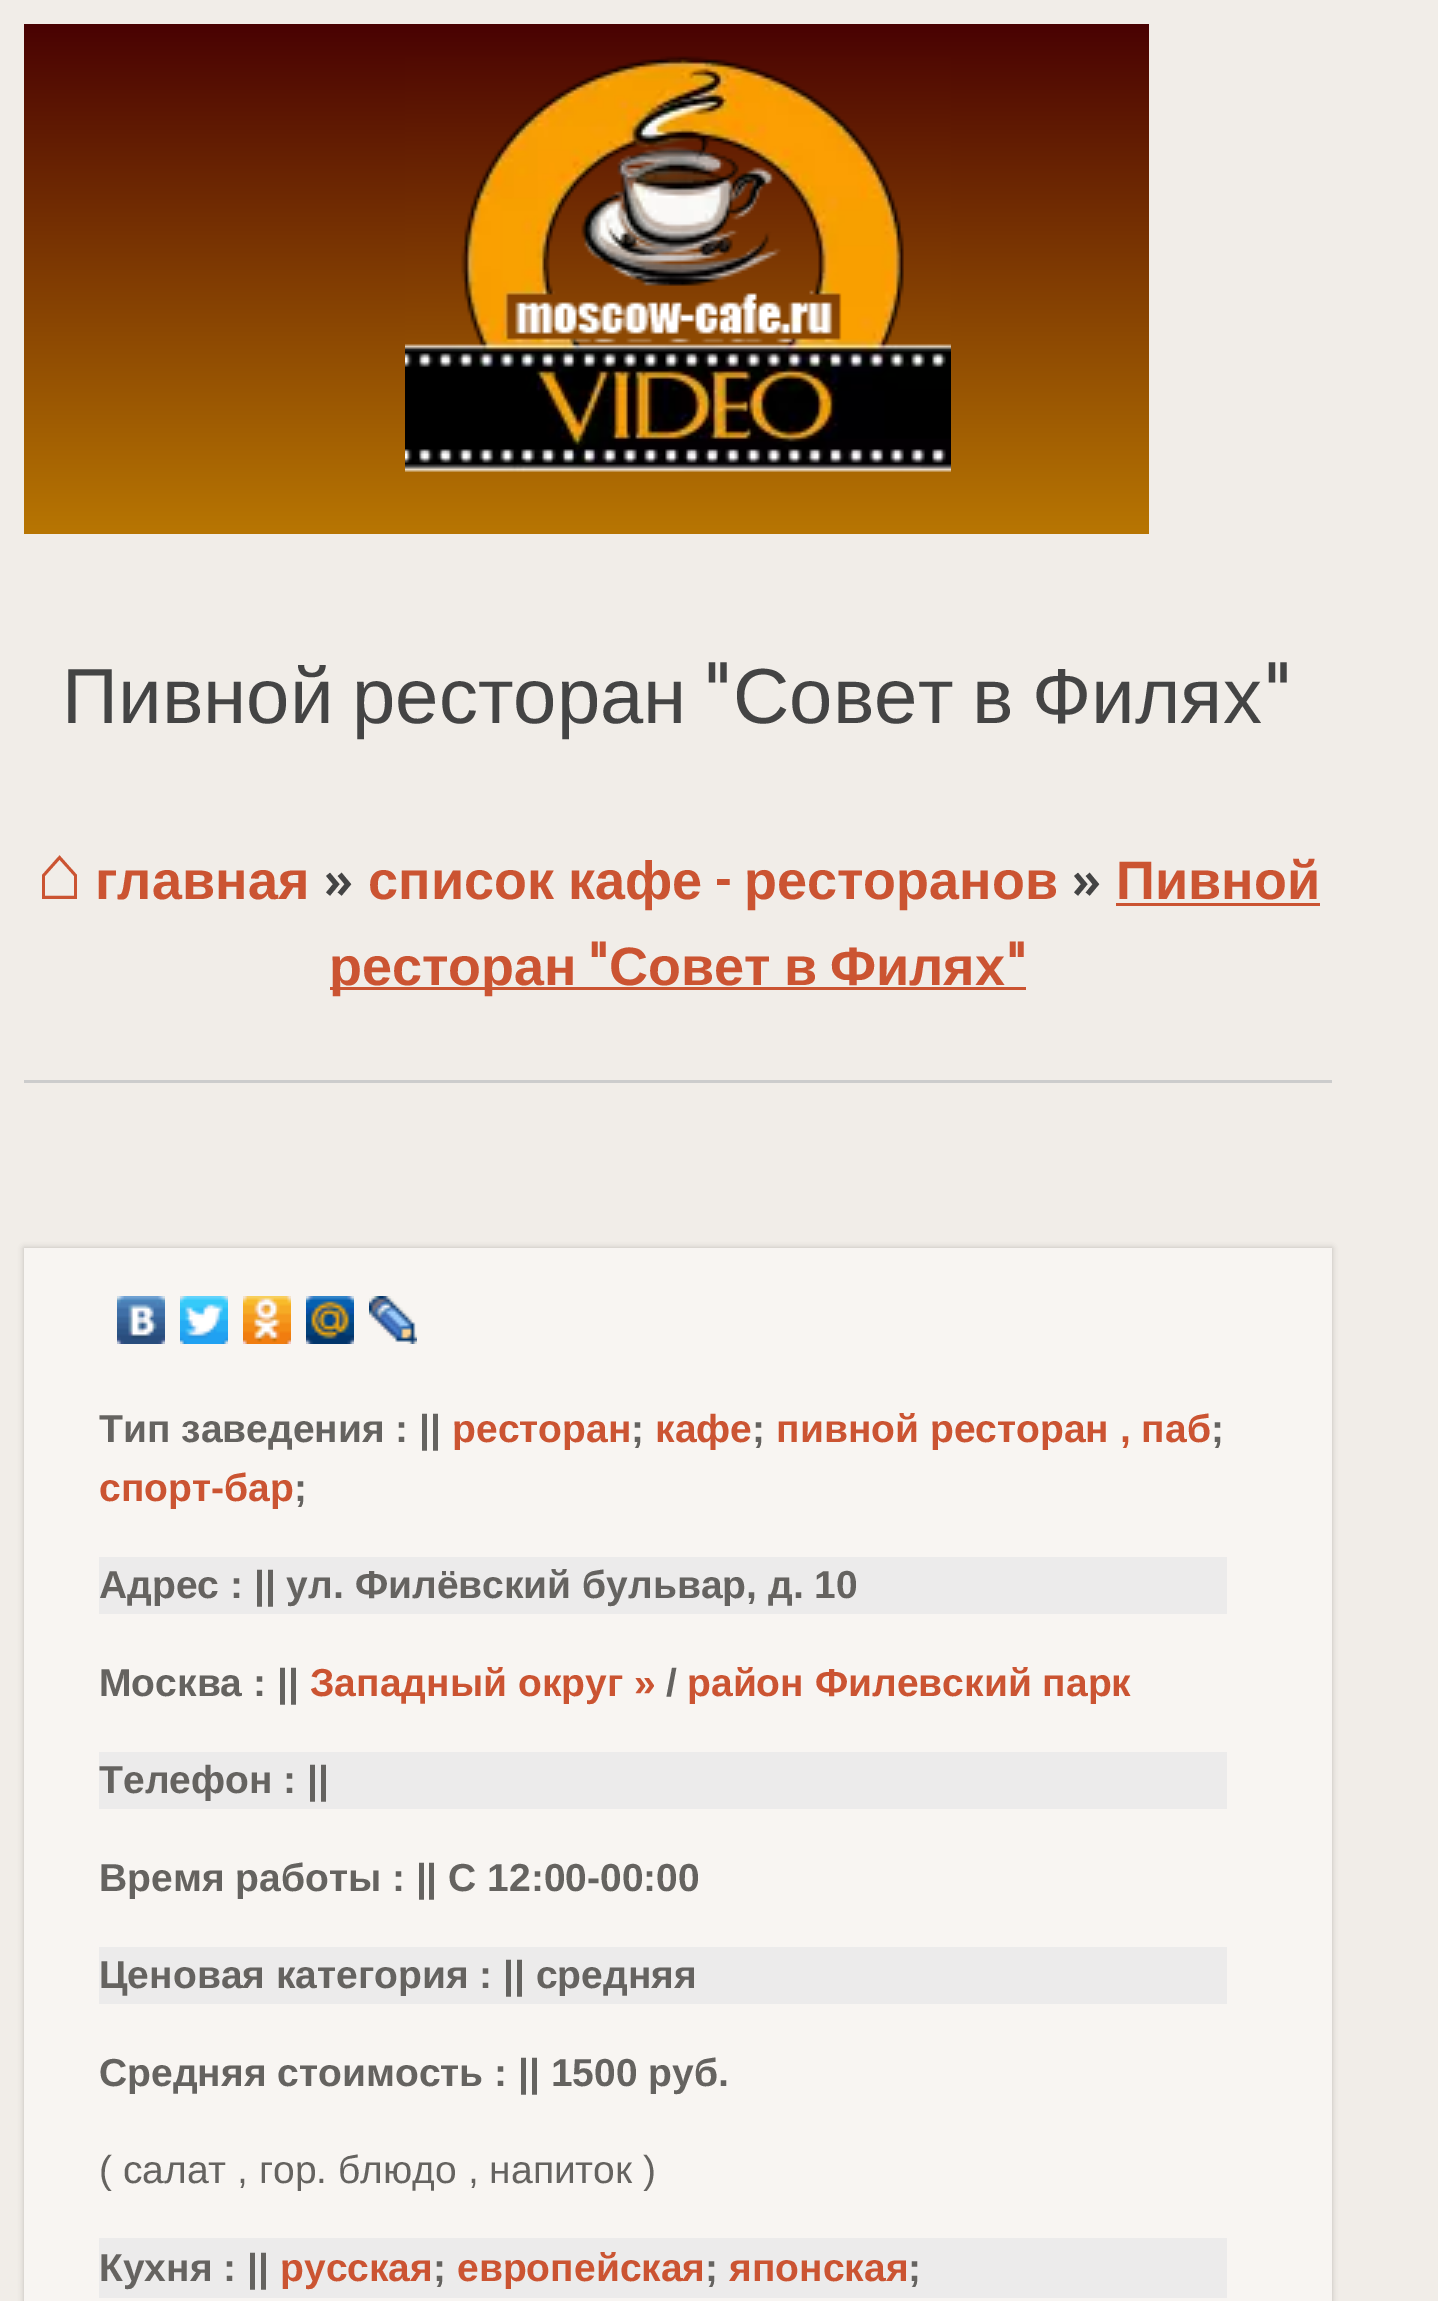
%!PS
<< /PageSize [1438 2301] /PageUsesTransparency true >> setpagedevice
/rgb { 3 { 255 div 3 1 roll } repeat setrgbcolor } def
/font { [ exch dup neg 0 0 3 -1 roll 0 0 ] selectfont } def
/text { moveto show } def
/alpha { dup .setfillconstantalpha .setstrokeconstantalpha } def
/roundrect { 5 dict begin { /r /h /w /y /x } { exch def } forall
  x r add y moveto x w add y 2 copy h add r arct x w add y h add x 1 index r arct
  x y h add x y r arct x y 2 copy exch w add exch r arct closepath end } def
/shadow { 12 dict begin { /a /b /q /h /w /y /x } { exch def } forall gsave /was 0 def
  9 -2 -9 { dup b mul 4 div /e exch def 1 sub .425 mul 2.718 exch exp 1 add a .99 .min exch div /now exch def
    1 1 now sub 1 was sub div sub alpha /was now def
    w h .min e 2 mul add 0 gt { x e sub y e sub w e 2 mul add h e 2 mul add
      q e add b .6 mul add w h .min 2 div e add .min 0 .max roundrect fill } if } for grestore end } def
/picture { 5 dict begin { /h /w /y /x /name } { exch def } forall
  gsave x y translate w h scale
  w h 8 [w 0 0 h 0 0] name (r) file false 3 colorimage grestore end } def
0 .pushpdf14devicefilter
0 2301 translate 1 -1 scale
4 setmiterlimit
241 237 232 rgb
0 0 1438 2301 rectfill
gsave 24 24 moveto 1125 0 rlineto 0 510 rlineto -1125 0 rlineto closepath clip newpath
<< /ShadingType 2 /ColorSpace /DeviceRGB /Coords [587 534 587 24] /Extend [true true] /Function << /FunctionType 2 /Domain [0 1] /C0 [0.722 0.463 0.008] /C1 [0.286 0.008 0.008] /N 1 >> >> shfill grestore
(img_01.rgb) 405 56 546 416 picture
204 204 204 rgb
24 1080 1308 3 rectfill
203 84 50 rgb
1116 903 204 3 rectfill
330 987 696 3 rectfill
0 0 0 rgb
24 1248 1308 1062 0 3 0.2 shadow
248 245 242 rgb
24 1248 1308 1053 rectfill
(img_02.rgb) 117 1296 48 48 picture
(img_03.rgb) 180 1296 48 48 picture
(img_04.rgb) 243 1296 48 48 picture
(img_05.rgb) 306 1296 48 48 picture
(img_06.rgb) 369 1296 48 48 picture
236 235 235 rgb
99 1557 1128 57 rectfill
99 1752 1128 57 rectfill
99 1947 1128 57 rectfill
99 2238 1128 60 rectfill
/LiberationSans-Regular 78 font
68 68 68 rgb
62 723 moveto -3 0 32 (Пивной ресторан) widthshow
/Voltaire-Regular 78 font
(") 702 723 text
/LiberationSans-Regular 78 font
733 723 moveto -3 0 32 (Совет в Филях) widthshow
/Voltaire-Regular 78 font
(") 1262 723 text
/LiberationSans-Bold 78 font
203 84 50 rgb
(⌂) 36 899 text
/LiberationSans-Bold 54 font
(главная) 95 899 text
/Voltaire-Bold 54 font
68 68 68 rgb
(») 322 899 text
/LiberationSans-Bold 54 font
203 84 50 rgb
368 899 moveto -1 0 32 (список кафе) widthshow
/Voltaire-Bold 54 font
(-) 713 899 text
/LiberationSans-Bold 54 font
(ресторанов) 744 899 text
/Voltaire-Bold 54 font
68 68 68 rgb
(») 1070 899 text
/LiberationSans-Bold 54 font
203 84 50 rgb
(Пивной) 1116 899 text
(ресторан) 329 985 text
/Voltaire-Bold 54 font
(") 587 985 text
/LiberationSans-Bold 54 font
609 985 moveto -2 0 32 (Совет в Филях) widthshow
/Voltaire-Bold 54 font
(") 1005 985 text
/LiberationSans-Bold 39 font
101 99 96 rgb
(Тип заведения : ||) 99 1442 text
203 84 50 rgb
(ресторан) 452 1442 text
101 99 96 rgb
(;) 631 1442 text
203 84 50 rgb
(кафе) 655 1442 text
101 99 96 rgb
(;) 752 1442 text
203 84 50 rgb
(пивной ресторан , паб) 776 1442 text
101 99 96 rgb
(;) 1211 1442 text
203 84 50 rgb
(спорт-бар) 99 1501 text
101 99 96 rgb
(;) 294 1501 text
(Адрес : || ул. Филёвский бульвар, д. 10) 99 1598 text
(Москва : ||) 99 1696 text
203 84 50 rgb
(Западный округ ») 310 1696 text
101 99 96 rgb
(/) 666 1696 text
203 84 50 rgb
(район Филевский парк) 687 1696 text
101 99 96 rgb
(Телефон : ||) 99 1793 text
(Время работы : || С 12:00-00:00) 99 1891 text
(Ценовая категория : || средняя) 99 1988 text
(Средняя стоимость : || 1500 руб.) 99 2086 text
/LiberationSans-Regular 39 font
(\( салат , гор. блюдо , напиток \)) 99 2183 text
/LiberationSans-Bold 39 font
(Кухня : ||) 99 2281 text
203 84 50 rgb
(русская) 280 2281 text
101 99 96 rgb
(;) 433 2281 text
203 84 50 rgb
(европейская) 457 2281 text
101 99 96 rgb
(;) 705 2281 text
203 84 50 rgb
(японская) 729 2281 text
101 99 96 rgb
(;) 908 2281 text
.poppdf14devicefilter showpage
